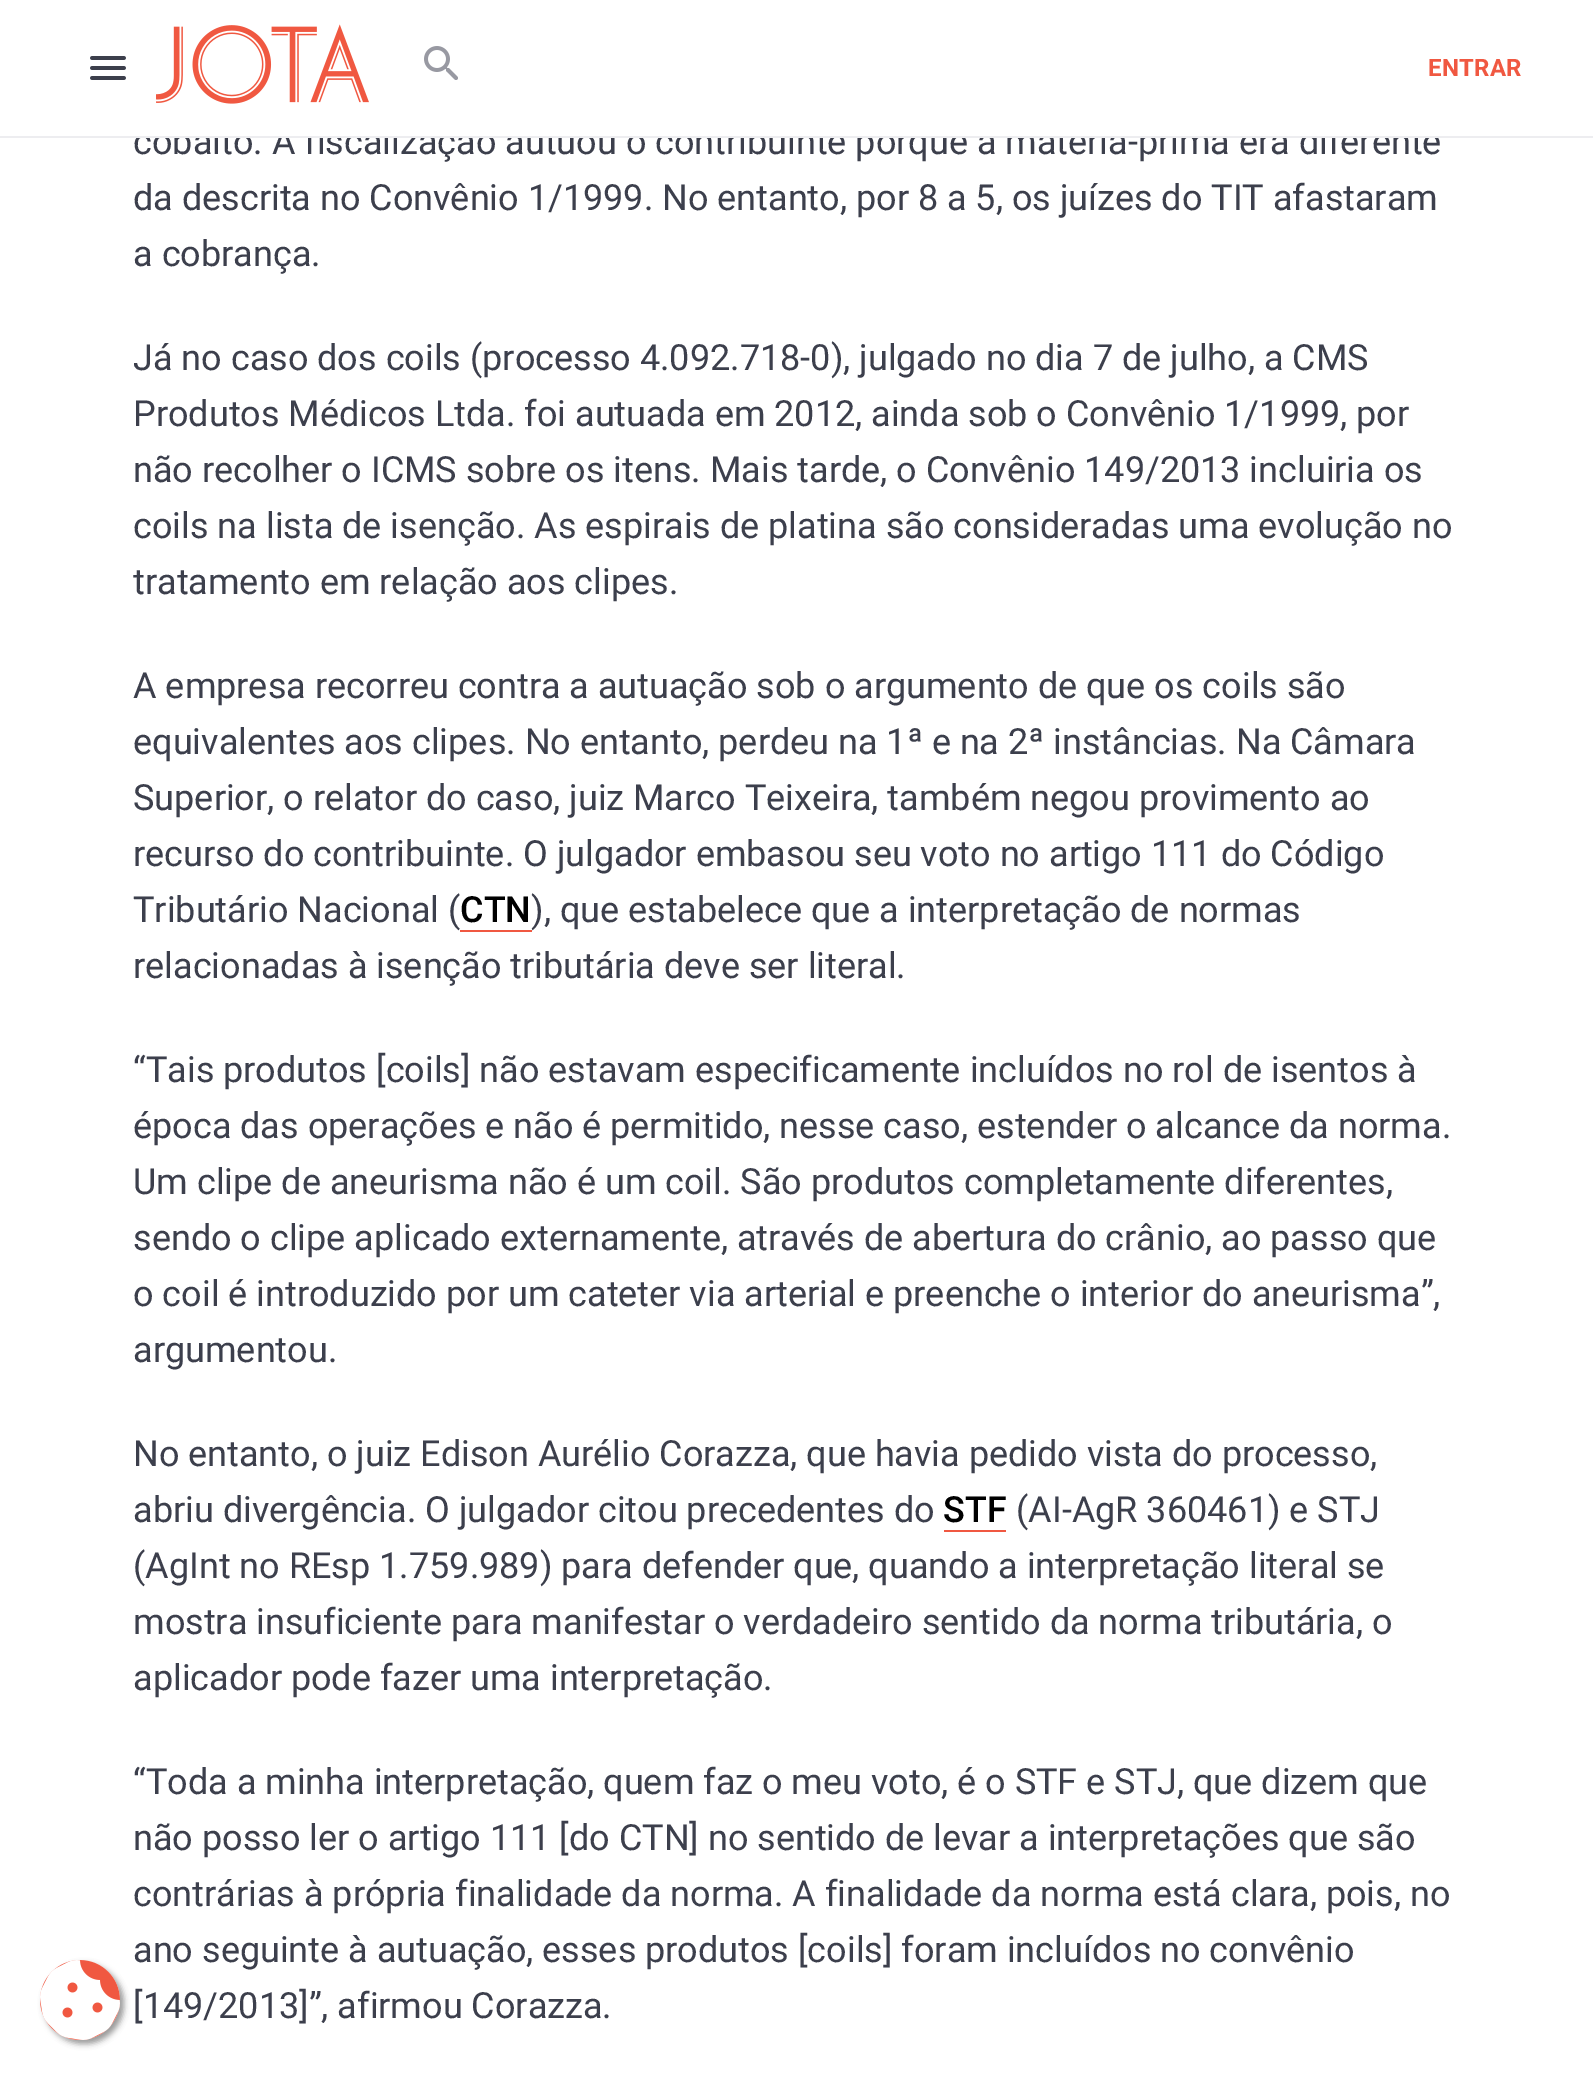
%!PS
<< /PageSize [1593 2080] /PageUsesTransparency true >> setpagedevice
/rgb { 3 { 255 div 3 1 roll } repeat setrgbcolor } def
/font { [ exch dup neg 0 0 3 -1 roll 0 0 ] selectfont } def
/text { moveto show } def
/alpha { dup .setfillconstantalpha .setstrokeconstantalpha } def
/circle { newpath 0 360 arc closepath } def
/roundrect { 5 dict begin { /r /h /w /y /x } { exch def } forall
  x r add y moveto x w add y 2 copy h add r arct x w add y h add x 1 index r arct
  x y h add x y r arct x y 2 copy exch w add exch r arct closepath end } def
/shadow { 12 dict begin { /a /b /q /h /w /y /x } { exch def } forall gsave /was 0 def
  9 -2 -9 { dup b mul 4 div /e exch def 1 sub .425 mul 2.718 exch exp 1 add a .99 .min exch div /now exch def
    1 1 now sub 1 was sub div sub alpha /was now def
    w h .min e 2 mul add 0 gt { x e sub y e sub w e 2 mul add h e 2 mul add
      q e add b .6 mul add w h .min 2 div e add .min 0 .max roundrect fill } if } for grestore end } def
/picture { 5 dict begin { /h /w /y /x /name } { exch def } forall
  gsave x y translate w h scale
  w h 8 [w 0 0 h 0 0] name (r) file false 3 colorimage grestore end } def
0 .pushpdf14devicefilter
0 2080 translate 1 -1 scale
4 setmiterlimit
255 255 255 rgb
0 0 1593 2080 rectfill
153 153 153 rgb
44 1964 80 80 40 3 1 shadow
240 88 65 rgb
80 2000 40 circle fill
(img_01.rgb) 40 1960 80 80 picture
(img_02.rgb) 90 56 36 24 picture
(img_03.rgb) 156 24 213 80 picture
(img_04.rgb) 424 46 34 34 picture
460 930 72 2 rectfill
944 1530 62 2 rectfill
/Roboto-Bold 24 font
1428 76 moveto 0.25 0 (ENTRAR) ashow
/Roboto-Regular 36 font
60 63 76 rgb
(cobalto. A fiscalização autuou o contribuinte porque a matéria-prima era diferente) 133 154 text
237 237 240 rgb
0 136 1593 2 rectfill
255 255 255 rgb
138 126 1299 10 rectfill
60 63 76 rgb
(da descrita no Convênio 1/1999. No entanto, por 8 a 5, os juízes do TIT afastaram) 133 210 text
(a cobrança.) 133 266 text
(Já no caso dos coils \(processo 4.092.718-0\), julgado no dia 7 de julho, a CMS) 133 370 text
(Produtos Médicos Ltda. foi autuada em 2012, ainda sob o Convênio 1/1999, por) 133 426 text
(não recolher o ICMS sobre os itens. Mais tarde, o Convênio 149/2013 incluiria os) 133 482 text
(coils na lista de isenção. As espirais de platina são consideradas uma evolução no) 133 538 text
(tratamento em relação aos clipes.) 133 594 text
(A empresa recorreu contra a autuação sob o argumento de que os coils são) 133 698 text
(equivalentes aos clipes. No entanto, perdeu na 1ª e na 2ª instâncias. Na Câmara) 133 754 text
(Superior, o relator do caso, juiz Marco Teixeira, também negou provimento ao) 133 810 text
(recurso do contribuinte. O julgador embasou seu voto no artigo 111 do Código) 133 866 text
(Tributário Nacional \() 133 922 text
/Roboto-Medium 36 font
0 0 0 rgb
(CTN) 460 922 text
/Roboto-Regular 36 font
60 63 76 rgb
(\), que estabelece que a interpretação de normas) 531 922 text
(relacionadas à isenção tributária deve ser literal.) 133 978 text
(“Tais produtos [coils] não estavam especificamente incluídos no rol de isentos à) 133 1082 text
(época das operações e não é permitido, nesse caso, estender o alcance da norma.) 133 1138 text
(Um clipe de aneurisma não é um coil. São produtos completamente diferentes,) 133 1194 text
(sendo o clipe aplicado externamente, através de abertura do crânio, ao passo que) 133 1250 text
(o coil é introduzido por um cateter via arterial e preenche o interior do aneurisma”,) 133 1306 text
(argumentou.) 133 1362 text
(No entanto, o juiz Edison Aurélio Corazza, que havia pedido vista do processo,) 133 1466 text
(abriu divergência. O julgador citou precedentes do) 133 1522 text
/Roboto-Medium 36 font
0 0 0 rgb
(STF) 943 1522 text
/Roboto-Regular 36 font
60 63 76 rgb
(\(AI-AgR 360461\) e STJ) 1016 1522 text
(\(AgInt no REsp 1.759.989\) para defender que, quando a interpretação literal se) 133 1578 text
(mostra insuficiente para manifestar o verdadeiro sentido da norma tributária, o) 133 1634 text
(aplicador pode fazer uma interpretação.) 133 1690 text
(“Toda a minha interpretação, quem faz o meu voto, é o STF e STJ, que dizem que) 133 1794 text
(não posso ler o artigo 111 [do CTN] no sentido de levar a interpretações que são) 133 1850 text
(contrárias à própria finalidade da norma. A finalidade da norma está clara, pois, no) 133 1906 text
(ano seguinte à autuação, esses produtos [coils] foram incluídos no convênio) 133 1962 text
([149/2013]”, afirmou Corazza.) 133 2018 text
.poppdf14devicefilter showpage
